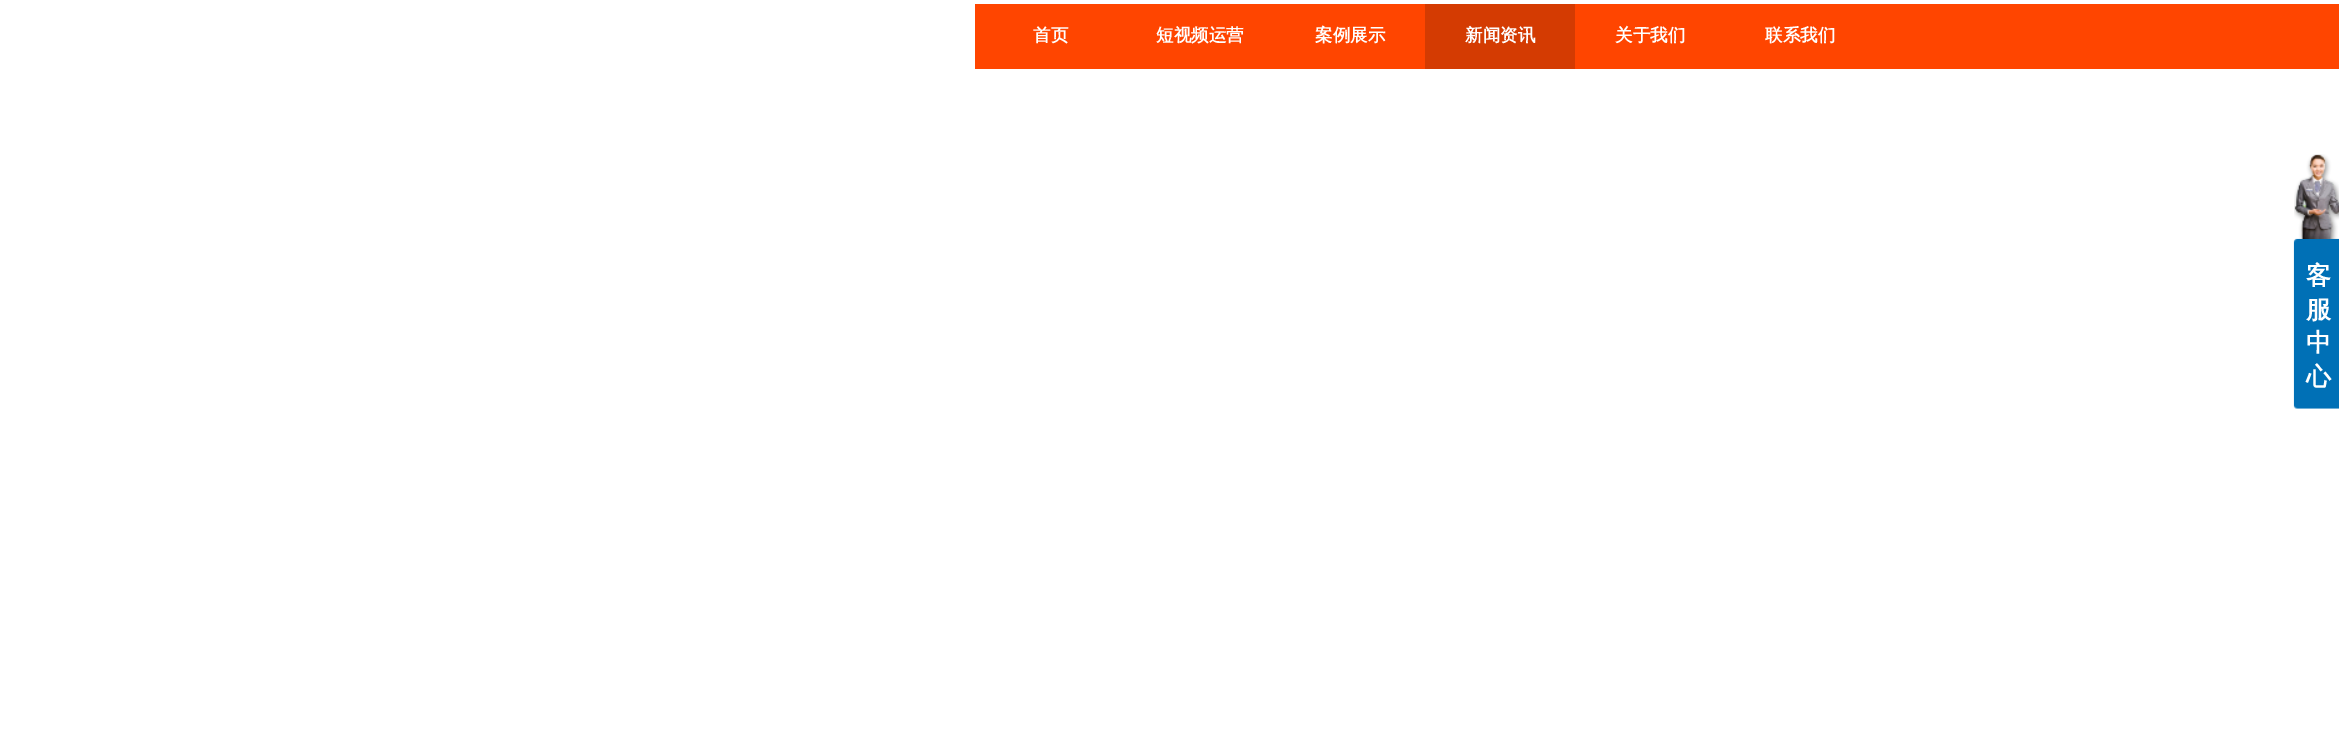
%!PS
<< /PageSize [2339 741] >> setpagedevice
/rgb { 3 { 255 div 3 1 roll } repeat setrgbcolor } def
/font { [ exch dup neg 0 0 3 -1 roll 0 0 ] selectfont } def
/text { moveto show } def
/picture { 5 dict begin { /h /w /y /x /name } { exch def } forall
  gsave x y translate w h scale
  w h 8 [w 0 0 h 0 0] name (r) file false 3 colorimage grestore end } def
0 741 translate 1 -1 scale
4 setmiterlimit
255 255 255 rgb
0 0 2339 741 rectfill
255 69 0 rgb
975 4 1364 65 rectfill
212 59 2 rgb
1425 4 150 65 rectfill
(img_02.rgb) 2293 238 46 171 picture
(img_01.rgb) 2294 154 45 85 picture
/WenQuanYiZenHei-Bold 17.5 font
255 255 255 rgb
(首页) 1033 41 text
(短视频运营) 1156 41 text
(案例展示) 1315 41 text
(新闻资讯) 1465 41 text
(关于我们) 1615 41 text
(联系我们) 1765 41 text
/WenQuanYiZenHei-Bold 25 font
(客) 2306 284 text
(服) 2306 318 text
(中) 2306 351 text
(心) 2306 385 text
showpage
